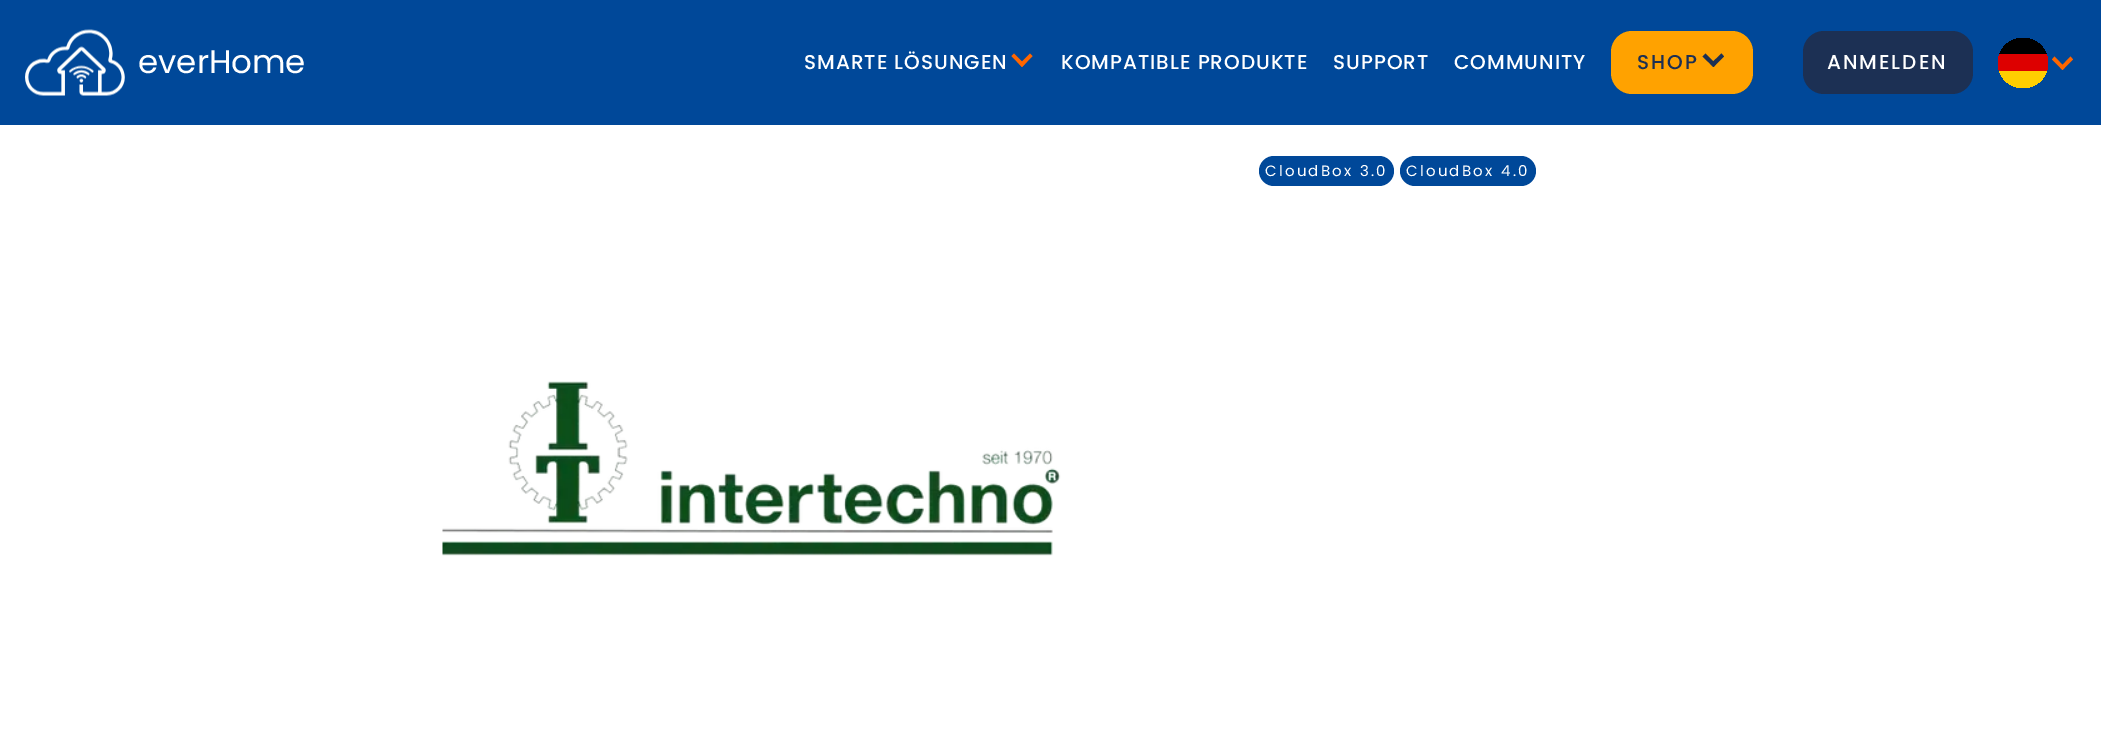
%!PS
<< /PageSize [2101 729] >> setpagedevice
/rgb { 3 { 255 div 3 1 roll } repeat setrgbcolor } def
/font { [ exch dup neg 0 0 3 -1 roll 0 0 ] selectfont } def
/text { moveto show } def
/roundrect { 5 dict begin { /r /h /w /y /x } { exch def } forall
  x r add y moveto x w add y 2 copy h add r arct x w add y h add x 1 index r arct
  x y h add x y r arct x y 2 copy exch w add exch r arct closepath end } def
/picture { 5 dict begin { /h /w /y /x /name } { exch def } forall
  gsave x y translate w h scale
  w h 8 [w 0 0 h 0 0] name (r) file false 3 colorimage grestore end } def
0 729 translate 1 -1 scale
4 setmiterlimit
255 255 255 rgb
0 0 2101 729 rectfill
0 72 153 rgb
0 0 2101 125 rectfill
(img_01.rgb) 25 29 100 67 picture
255 102 0 rgb
1030 53.5 moveto 2.5 2.5 rlineto -10.5 11 rlineto -2.5 -3 rlineto closepath fill
1014 53.5 moveto 10.5 10.5 rlineto -2.5 3 rlineto -10.5 -11 rlineto closepath fill
255 162 0 rgb
1611 31 142 63 21 roundrect fill
28 48 84 rgb
1721.5 53.5 moveto 2.5 3 rlineto -10.5 10.5 rlineto -3 -3 rlineto closepath fill
1705.5 53.5 moveto 10.5 10.5 rlineto -2.5 3 rlineto -11 -10.5 rlineto closepath fill
1803 31 170 63 21 roundrect fill
gsave
1998 38 50 50 25 roundrect clip newpath
0 0 0 rgb
1999 38 48 16 rectfill
221 0 0 rgb
1998 54 50 17 rectfill
255 206 0 rgb
1999 71 48 17 rectfill
grestore
255 102 0 rgb
2070.5 56.5 moveto 2.5 3 rlineto -10.5 10.5 rlineto -2.5 -2.5 rlineto closepath fill
2054.5 56.5 moveto 10.5 11 rlineto -2.5 2.5 rlineto -10.5 -10.5 rlineto closepath fill
0 72 153 rgb
1259 156 135 30 15 roundrect fill
1400 156 136 30 15 roundrect fill
(img_02.rgb) 442 381 619 175 picture
/Poppins-Regular 32.5 font
255 255 255 rgb
(everHome) 138 73 text
/Poppins-Medium 20 font
804 69 moveto 1 0 (SMARTE LÖSUNGEN) ashow
1061 69 moveto 1 0 (KOMPATIBLE PRODUKTE) ashow
1333 69 moveto 1 0 (SUPPORT) ashow
1454 69 moveto 1 0 (COMMUNITY) ashow
28 48 84 rgb
1637 69 moveto 2 0 (SHOP) ashow
255 255 255 rgb
1827 69 moveto 2 0 (ANMELDEN) ashow
/Poppins-Regular 15 font
1265 176 moveto 2.25 0 (CloudBox 3.0) ashow
1406 176 moveto 2.25 0 (CloudBox 4.0) ashow
showpage
